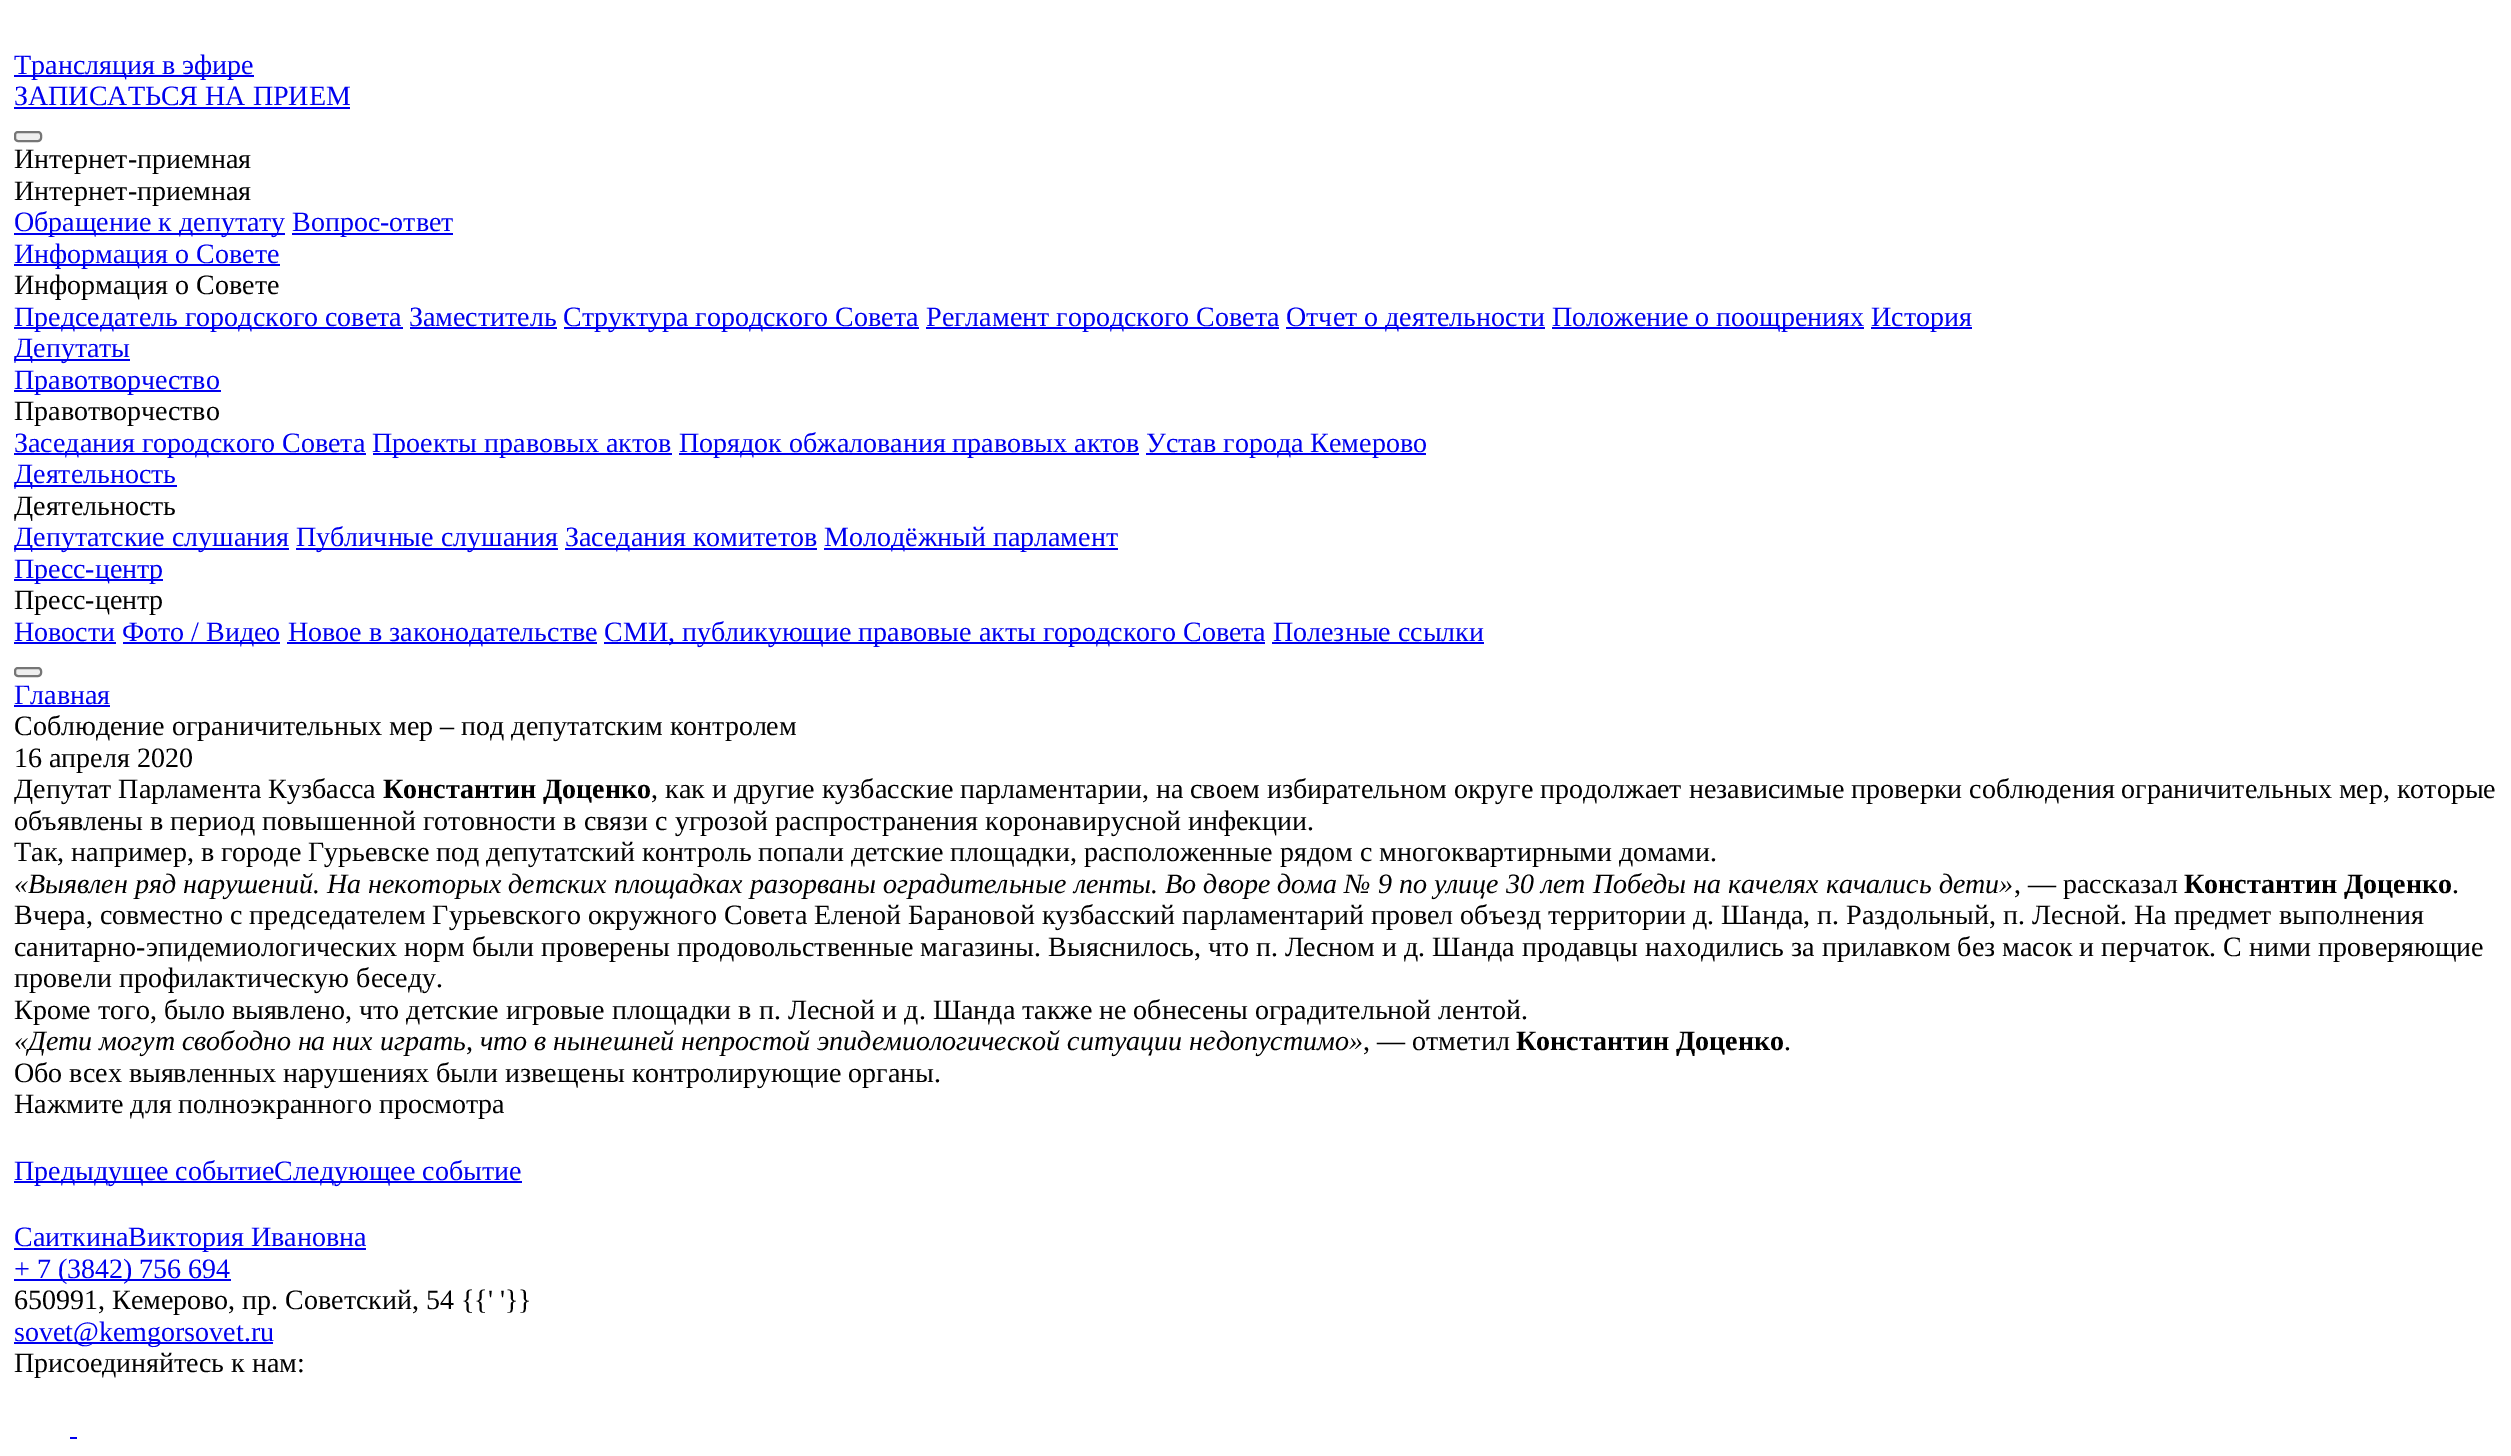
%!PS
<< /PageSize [2511 1456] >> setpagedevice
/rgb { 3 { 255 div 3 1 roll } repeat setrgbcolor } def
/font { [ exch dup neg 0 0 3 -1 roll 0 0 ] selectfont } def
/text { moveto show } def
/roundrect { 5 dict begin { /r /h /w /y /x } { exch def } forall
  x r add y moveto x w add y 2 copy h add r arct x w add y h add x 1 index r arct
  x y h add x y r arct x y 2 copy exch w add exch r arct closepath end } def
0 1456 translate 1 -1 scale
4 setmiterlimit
255 255 255 rgb
0 0 2511 1456 rectfill
0 0 238 rgb
14 75 240 2 rectfill
14 107 336 2 rectfill
239 239 239 rgb
15 132 26 9 3 roundrect gsave fill grestore
118 118 118 rgb
2 setlinewidth
stroke
0 0 238 rgb
14 233 271 2 rectfill
292 233 161 2 rectfill
14 264 266 2 rectfill
14 327 389 2 rectfill
564 327 355 2 rectfill
926 327 353 2 rectfill
1286 327 259 2 rectfill
1552 327 312 2 rectfill
1871 327 101 2 rectfill
410 327 147 2 rectfill
14 359 116 2 rectfill
14 390 207 2 rectfill
14 453 352 2 rectfill
373 453 299 2 rectfill
679 453 460 2 rectfill
1146 453 280 2 rectfill
14 485 163 2 rectfill
14 548 275 2 rectfill
296 548 262 2 rectfill
565 548 252 2 rectfill
824 548 294 2 rectfill
14 579 149 2 rectfill
14 642 102 2 rectfill
123 642 157 2 rectfill
287 642 310 2 rectfill
604 642 661 2 rectfill
1272 642 212 2 rectfill
239 239 239 rgb
15 668 26 8 3 roundrect gsave fill grestore
118 118 118 rgb
stroke
0 0 238 rgb
14 705 96 2 rectfill
14 1181 508 2 rectfill
14 1248 352 2 rectfill
14 1279 217 2 rectfill
14 1342 259 2 rectfill
70 1437 7 2 rectfill
/LiberationSerif-Regular 28 font
(Трансляция в эфире) 14 74 text
(ЗАПИСАТЬСЯ НА ПРИЕМ) 14 105 text
0 0 0 rgb
(Интернет-приемная) 14 168 text
(Интернет-приемная) 14 200 text
0 0 238 rgb
(Обращение к депутату) 14 231 text
(Вопрос-ответ) 292 231 text
(Информация о Совете) 14 263 text
0 0 0 rgb
(Информация о Совете) 14 294 text
0 0 238 rgb
(Председатель городского совета Заместитель) 14 326 text
(Структура городского Совета) 563 326 text
(Регламент городского Совета) 926 326 text
(Отчет о деятельности) 1286 326 text
(Положение о поощрениях) 1552 326 text
(История) 1871 326 text
(Депутаты) 14 357 text
(Правотворчество) 14 389 text
0 0 0 rgb
(Правотворчество) 14 420 text
0 0 238 rgb
(Заседания городского Совета) 14 452 text
(Проекты правовых актов) 372 452 text
(Порядок обжалования правовых актов) 679 452 text
(Устав города Кемерово) 1146 452 text
(Деятельность) 14 483 text
0 0 0 rgb
(Деятельность) 14 515 text
0 0 238 rgb
(Депутатские слушания) 14 546 text
(Публичные слушания) 296 546 text
(Заседания комитетов) 565 546 text
(Молодёжный парламент) 824 546 text
(Пресс-центр) 14 578 text
0 0 0 rgb
(Пресс-центр) 14 609 text
0 0 238 rgb
(Новости) 14 641 text
(Фото / Видео) 122 641 text
(Новое в законодательстве) 288 641 text
(СМИ, публикующие правовые акты городского Совета Полезные ссылки) 604 641 text
(Главная) 14 704 text
0 0 0 rgb
(Соблюдение ограничительных мер – под депутатским контролем) 14 735 text
(16 апреля 2020) 14 767 text
(Депутат Парламента Кузбасса) 14 798 text
/LiberationSerif-Bold 28 font
(Константин Доценко) 383 798 text
/LiberationSerif-Regular 28 font
(, как и другие кузбасские парламентарии, на своем избирательном округе продолжает независимые проверки соблюдения ограничительных мер, которые) 651 798 text
(объявлены в период повышенной готовности в связи с угрозой распространения коронавирусной инфекции.) 14 830 text
(Так, например, в городе Гурьевске под депутатский контроль попали детские площадки, расположенные рядом с многоквартирными домами.) 14 861 text
/LiberationSerif-Italic 28 font
(«Выявлен ряд нарушений. На некоторых детских площадках разорваны оградительные ленты. Во дворе дома № 9 по улице 30 лет Победы на качелях качались дети») 14 893 text
/LiberationSerif-Regular 28 font
(, — рассказал) 2014 893 text
/LiberationSerif-Bold 28 font
(Константин Доценко) 2184 893 text
/LiberationSerif-Regular 28 font
(.) 2452 893 text
(Вчера, совместно с председателем Гурьевского окружного Совета Еленой Барановой кузбасский парламентарий провел объезд территории д. Шанда, п. Раздольный, п. Лесной. На предмет выполнения) 14 924 text
(санитарно-эпидемиологических норм были проверены продовольственные магазины. Выяснилось, что п. Лесном и д. Шанда продавцы находились за прилавком без масок и перчаток. С ними проверяющие) 14 956 text
(провели профилактическую беседу.) 14 987 text
(Кроме того, было выявлено, что детские игровые площадки в п. Лесной и д. Шанда также не обнесены оградительной лентой.) 14 1019 text
/LiberationSerif-Italic 28 font
(«Дети могут свободно на них играть, что в нынешней непростой эпидемиологической ситуации недопустимо») 14 1050 text
/LiberationSerif-Regular 28 font
(, — отметил) 1363 1050 text
/LiberationSerif-Bold 28 font
(Константин Доценко) 1516 1050 text
/LiberationSerif-Regular 28 font
(.) 1784 1050 text
(Обо всех выявленных нарушениях были извещены контролирующие органы.) 14 1082 text
(Нажмите для полноэкранного просмотра) 14 1113 text
0 0 238 rgb
(Предыдущее событиеСледующее событие) 14 1180 text
(СаиткинаВиктория Ивановна) 14 1246 text
(+ 7 \(3842\) 756 694) 14 1278 text
0 0 0 rgb
(650991, Кемерово, пр. Советский, 54 {{' '}}) 14 1309 text
0 0 238 rgb
(sovet@kemgorsovet.ru) 14 1341 text
0 0 0 rgb
(Присоединяйтесь к нам:) 14 1372 text
showpage
